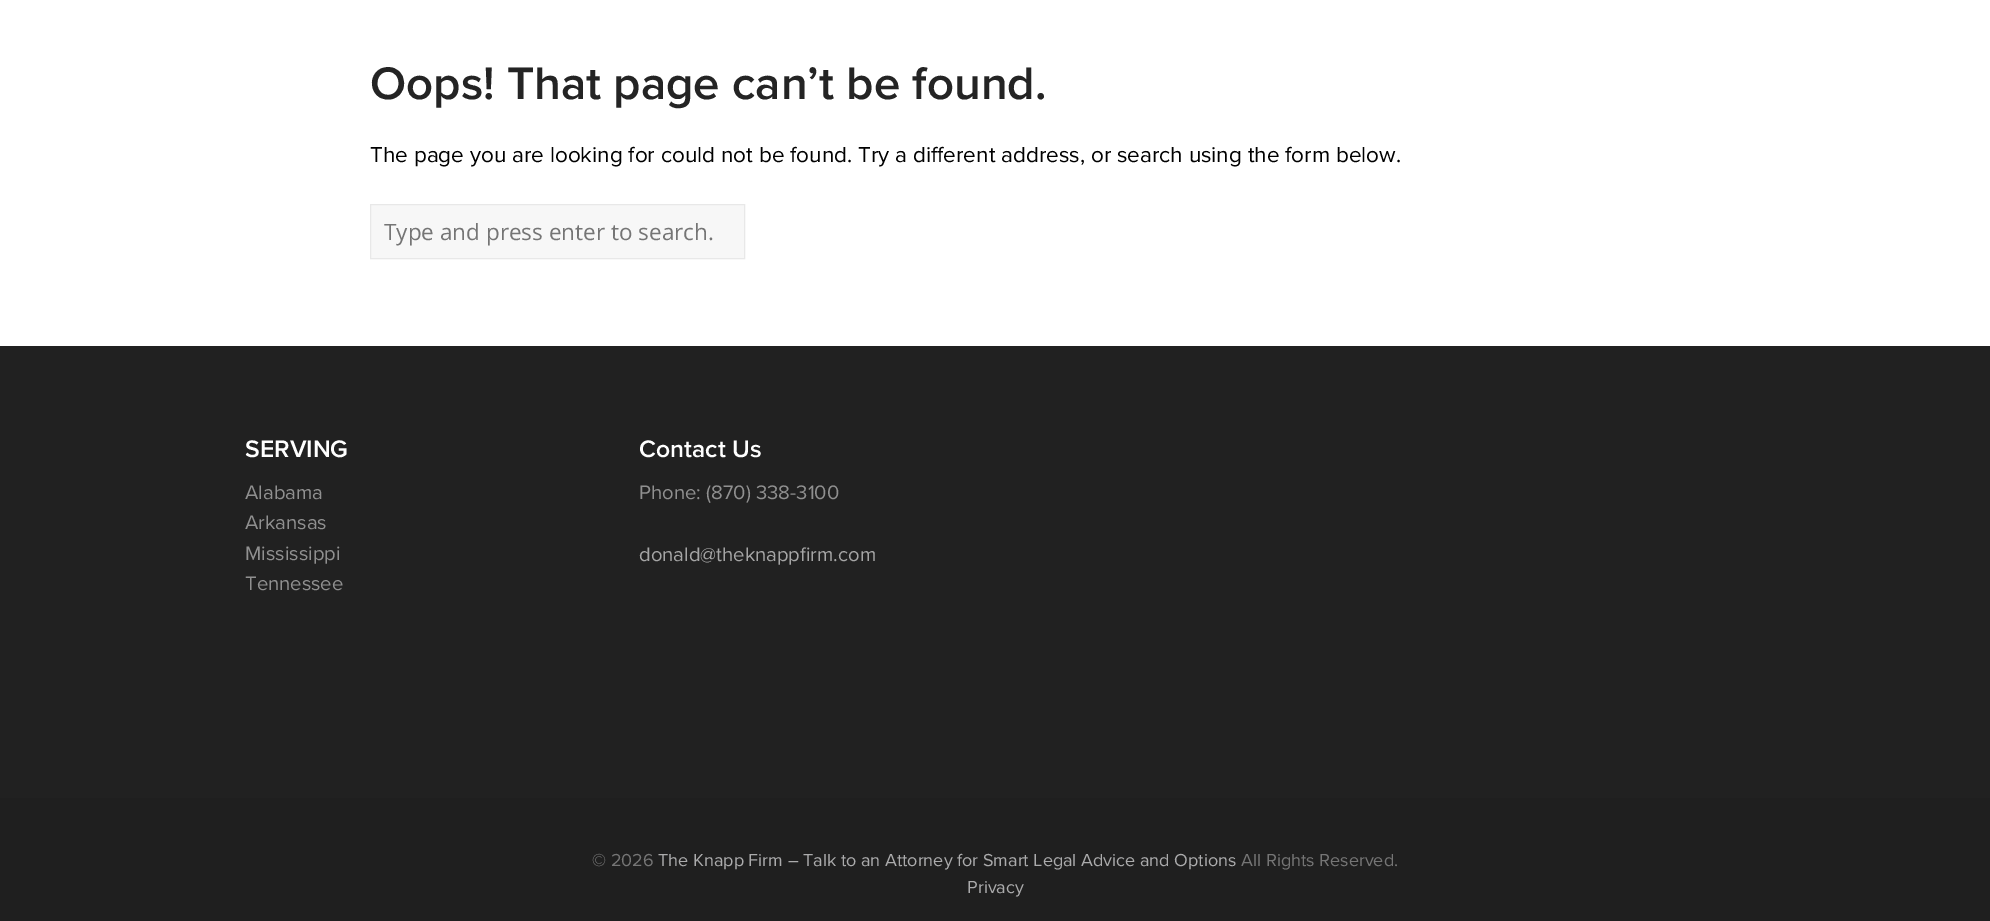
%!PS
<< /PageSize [1990 921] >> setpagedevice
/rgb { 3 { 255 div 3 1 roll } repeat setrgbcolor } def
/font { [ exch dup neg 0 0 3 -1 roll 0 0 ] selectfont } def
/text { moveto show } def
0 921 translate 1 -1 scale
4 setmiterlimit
255 255 255 rgb
0 0 1990 921 rectfill
247 247 247 rgb
370.5 204.5 moveto 374 0 rlineto 0 54 rlineto -374 0 rlineto closepath gsave fill grestore
232 232 232 rgb
stroke
33 33 33 rgb
0 346 1990 452 rectfill
31 31 31 rgb
0 798 1990 123 rectfill
/ProximaNova-SemiBold 47.25 font
36 36 36 rgb
(Oops! That page can’t be found.) 370 99 text
/ProximaNova-Regular 22.5 font
0 0 0 rgb
(The page you are looking for could not be found. Try a different address, or search using the form below.) 370 162 text
/OpenSans-Regular 22.5 font
117 117 117 rgb
(Type and press enter to search.) 384 240 text
/ProximaNova-SemiBold 24.75 font
255 255 255 rgb
(SERVING) 245 457 text
/ProximaNova-Regular 20.25 font
144 144 144 rgb
(Alabama) 245 499 text
(Arkansas) 245 529 text
(Mississippi) 245 560 text
(Tennessee) 245 590 text
/ProximaNova-SemiBold 24.75 font
255 255 255 rgb
(Contact Us) 639 457 text
/ProximaNova-Regular 20.25 font
144 144 144 rgb
(Phone: \(870\) 338-3100) 639 499 text
165 165 165 rgb
(donald@theknappfirm.com) 639 561 text
/ProximaNova-Regular 18 font
117 117 117 rgb
(© 2026) 592 866 text
171 171 172 rgb
(The Knapp Firm – Talk to an Attorney for Smart Legal Advice and Options) 658 866 text
117 117 117 rgb
(All Rights Reserved.) 1241 866 text
171 171 172 rgb
(Privacy) 967 893 text
showpage
